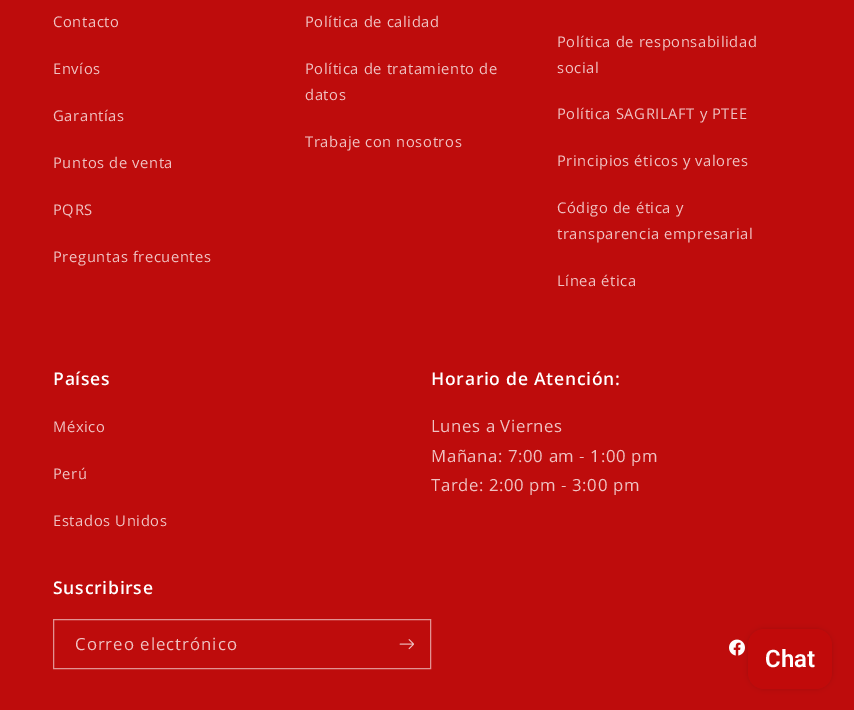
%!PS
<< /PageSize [854 710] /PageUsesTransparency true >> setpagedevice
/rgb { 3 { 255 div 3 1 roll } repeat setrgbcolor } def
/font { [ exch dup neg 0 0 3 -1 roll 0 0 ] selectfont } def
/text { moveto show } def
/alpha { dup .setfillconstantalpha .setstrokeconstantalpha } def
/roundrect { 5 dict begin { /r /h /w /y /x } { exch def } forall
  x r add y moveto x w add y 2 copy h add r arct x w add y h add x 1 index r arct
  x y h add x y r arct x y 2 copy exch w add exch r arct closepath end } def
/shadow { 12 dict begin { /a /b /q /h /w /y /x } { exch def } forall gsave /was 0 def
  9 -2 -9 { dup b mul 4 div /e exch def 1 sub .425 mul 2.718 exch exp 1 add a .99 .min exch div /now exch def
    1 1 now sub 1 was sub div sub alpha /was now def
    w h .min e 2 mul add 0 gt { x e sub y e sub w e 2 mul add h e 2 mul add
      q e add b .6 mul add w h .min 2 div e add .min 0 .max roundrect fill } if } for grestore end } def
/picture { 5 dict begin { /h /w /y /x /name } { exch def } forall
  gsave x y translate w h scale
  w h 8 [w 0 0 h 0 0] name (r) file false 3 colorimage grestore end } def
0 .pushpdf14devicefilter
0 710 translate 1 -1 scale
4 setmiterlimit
190 12 12 rgb
0 0 854 710 rectfill
226 146 146 rgb
53.5 619.5 377 49 rectstroke
(img_01.rgb) 399 639 15 11 picture
(img_02.rgb) 729 639 16 17 picture
0 0 0 rgb
748 629 84 60 16 2.5 0.15 shadow
193 10 10 rgb
748 629 84 60 16 roundrect fill
/OpenSans-Regular 14.75 font
239 194 194 rgb
53 27 moveto 0.6 0 (Contacto) ashow
53 74 moveto 0.6 0 (Envíos) ashow
53 121 moveto 0.6 0 (Garantías) ashow
53 168 moveto 0.6 0 (Puntos de venta) ashow
53 215 moveto 0.6 0 (PQRS) ashow
53 262 moveto 0.6 0 (Preguntas frecuentes) ashow
305 27 moveto 0.6 0 (Política de calidad) ashow
305 74 moveto 0.6 0 (Política de tratamiento de) ashow
305 100 moveto 0.6 0 (datos) ashow
305 147 moveto 0.6 0 (Trabaje con nosotros) ashow
557 47 moveto 0.6 0 (Política de responsabilidad) ashow
557 73 moveto 0.6 0 (social) ashow
557 119 moveto 0.6 0 (Política SAGRILAFT y PTEE) ashow
557 166 moveto 0.6 0 (Principios éticos y valores) ashow
557 213 moveto 0.6 0 (Código de ética y) ashow
557 239 moveto 0.6 0 (transparencia empresarial) ashow
557 286 moveto 0.6 0 (Línea ética) ashow
/OpenSans-SemiBold 17.6 font
255 255 255 rgb
53 385 moveto 0.7 0 (Países) ashow
/OpenSans-Regular 14.75 font
239 194 194 rgb
53 432 moveto 0.6 0 (México) ashow
53 479 moveto 0.6 0 (Perú) ashow
53 526 moveto 0.6 0 (Estados Unidos) ashow
/OpenSans-SemiBold 17.6 font
255 255 255 rgb
431 385 moveto 0.7 0 (Horario de Atención:) ashow
/OpenSans-Regular 16.75 font
239 194 194 rgb
431 432 moveto 0.6 0 (Lunes a Viernes) ashow
431 462 moveto 0.6 0 (Mañana: 7:00 am - 1:00 pm) ashow
431 491 moveto 0.6 0 (Tarde: 2:00 pm - 3:00 pm) ashow
/OpenSans-SemiBold 17.6 font
255 255 255 rgb
53 594 moveto 0.7 0 (Suscribirse) ashow
/OpenSans-Regular 16.75 font
239 194 194 rgb
75 650 moveto 1 0 (Correo electrónico) ashow
/Roboto-SemiBold 24 font
255 255 255 rgb
(Chat) 765 667 text
.poppdf14devicefilter showpage
